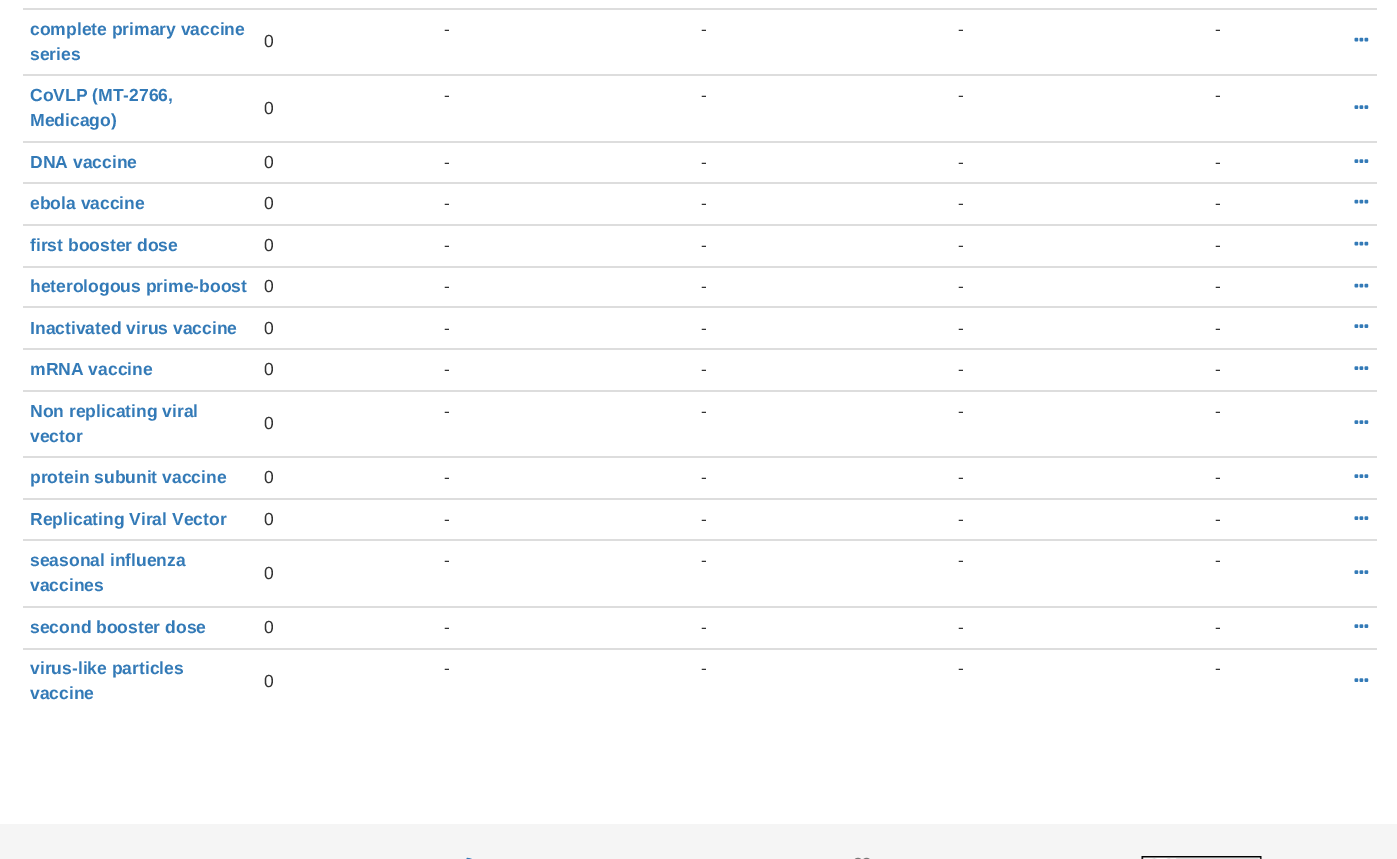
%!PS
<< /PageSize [1397 859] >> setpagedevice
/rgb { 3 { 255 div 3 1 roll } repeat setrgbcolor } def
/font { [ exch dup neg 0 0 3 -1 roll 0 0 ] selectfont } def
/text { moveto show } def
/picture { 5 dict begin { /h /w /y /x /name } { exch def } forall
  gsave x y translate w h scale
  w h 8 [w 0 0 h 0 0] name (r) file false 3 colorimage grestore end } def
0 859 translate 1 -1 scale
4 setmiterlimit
255 255 255 rgb
0 0 1397 859 rectfill
221 221 221 rgb
23 8 1354 2 rectfill
(img_01.rgb) 1354 37 15 5 picture
23 74 1354 2 rectfill
(img_02.rgb) 1354 105 15 4 picture
23 141 1354 2 rectfill
(img_02.rgb) 1354 159 15 4 picture
23 182 1354 2 rectfill
(img_01.rgb) 1354 199 15 5 picture
23 224 1354 2 rectfill
(img_01.rgb) 1354 241 15 5 picture
23 266 1354 2 rectfill
(img_01.rgb) 1354 283 15 5 picture
23 306 1354 2 rectfill
(img_02.rgb) 1354 324 15 4 picture
23 348 1354 2 rectfill
(img_02.rgb) 1354 366 15 4 picture
23 390 1354 2 rectfill
(img_02.rgb) 1354 420 15 4 picture
23 456 1354 2 rectfill
(img_02.rgb) 1354 474 15 4 picture
23 498 1354 2 rectfill
(img_02.rgb) 1354 516 15 4 picture
23 539 1354 2 rectfill
(img_02.rgb) 1354 570 15 4 picture
23 606 1354 2 rectfill
(img_02.rgb) 1354 624 15 4 picture
23 648 1354 2 rectfill
(img_02.rgb) 1354 678 15 4 picture
245 245 245 rgb
0 824 1397 35 rectfill
(img_03.rgb) 466 857 6 2 picture
(img_04.rgb) 854 857 16 2 picture
(img_05.rgb) 1141 856 121 3 picture
/LiberationSans-Bold 17.5 font
51 122 183 rgb
(complete primary vaccine) 30 35 text
(series) 30 60 text
/LiberationSans-Regular 17.5 font
51 51 51 rgb
(-) 444 35 text
(-) 701 35 text
(-) 958 35 text
(-) 1215 35 text
(0) 264 47 text
/LiberationSans-Bold 17.5 font
51 122 183 rgb
(CoVLP \(MT-2766,) 30 101 text
(Medicago\)) 30 126 text
/LiberationSans-Regular 17.5 font
51 51 51 rgb
(-) 444 101 text
(-) 701 101 text
(-) 958 101 text
(-) 1215 101 text
(0) 264 114 text
/LiberationSans-Bold 17.5 font
51 122 183 rgb
(DNA vaccine) 30 168 text
/LiberationSans-Regular 17.5 font
51 51 51 rgb
(0) 264 168 text
(-) 444 168 text
(-) 701 168 text
(-) 958 168 text
(-) 1215 168 text
/LiberationSans-Bold 17.5 font
51 122 183 rgb
(ebola vaccine) 30 209 text
/LiberationSans-Regular 17.5 font
51 51 51 rgb
(0) 264 209 text
(-) 444 209 text
(-) 701 209 text
(-) 958 209 text
(-) 1215 209 text
/LiberationSans-Bold 17.5 font
51 122 183 rgb
(first booster dose) 30 251 text
/LiberationSans-Regular 17.5 font
51 51 51 rgb
(0) 264 251 text
(-) 444 251 text
(-) 701 251 text
(-) 958 251 text
(-) 1215 251 text
/LiberationSans-Bold 17.5 font
51 122 183 rgb
(heterologous prime-boost) 30 292 text
/LiberationSans-Regular 17.5 font
51 51 51 rgb
(0) 264 292 text
(-) 444 292 text
(-) 701 292 text
(-) 958 292 text
(-) 1215 292 text
/LiberationSans-Bold 17.5 font
51 122 183 rgb
(Inactivated virus vaccine) 30 334 text
/LiberationSans-Regular 17.5 font
51 51 51 rgb
(0) 264 334 text
(-) 444 334 text
(-) 701 334 text
(-) 958 334 text
(-) 1215 334 text
/LiberationSans-Bold 17.5 font
51 122 183 rgb
(mRNA vaccine) 30 375 text
/LiberationSans-Regular 17.5 font
51 51 51 rgb
(0) 264 375 text
(-) 444 375 text
(-) 701 375 text
(-) 958 375 text
(-) 1215 375 text
/LiberationSans-Bold 17.5 font
51 122 183 rgb
(Non replicating viral) 30 417 text
(vector) 30 442 text
/LiberationSans-Regular 17.5 font
51 51 51 rgb
(-) 444 417 text
(-) 701 417 text
(-) 958 417 text
(-) 1215 417 text
(0) 264 429 text
/LiberationSans-Bold 17.5 font
51 122 183 rgb
(protein subunit vaccine) 30 483 text
/LiberationSans-Regular 17.5 font
51 51 51 rgb
(0) 264 483 text
(-) 444 483 text
(-) 701 483 text
(-) 958 483 text
(-) 1215 483 text
/LiberationSans-Bold 17.5 font
51 122 183 rgb
(Replicating Viral Vector) 30 525 text
/LiberationSans-Regular 17.5 font
51 51 51 rgb
(0) 264 525 text
(-) 444 525 text
(-) 701 525 text
(-) 958 525 text
(-) 1215 525 text
/LiberationSans-Bold 17.5 font
51 122 183 rgb
(seasonal influenza) 30 566 text
(vaccines) 30 591 text
/LiberationSans-Regular 17.5 font
51 51 51 rgb
(-) 444 566 text
(-) 701 566 text
(-) 958 566 text
(-) 1215 566 text
(0) 264 579 text
/LiberationSans-Bold 17.5 font
51 122 183 rgb
(second booster dose) 30 633 text
/LiberationSans-Regular 17.5 font
51 51 51 rgb
(0) 264 633 text
(-) 444 633 text
(-) 701 633 text
(-) 958 633 text
(-) 1215 633 text
/LiberationSans-Bold 17.5 font
51 122 183 rgb
(virus-like particles) 30 674 text
(vaccine) 30 699 text
/LiberationSans-Regular 17.5 font
51 51 51 rgb
(-) 444 674 text
(-) 701 674 text
(-) 958 674 text
(-) 1215 674 text
(0) 264 687 text
showpage
